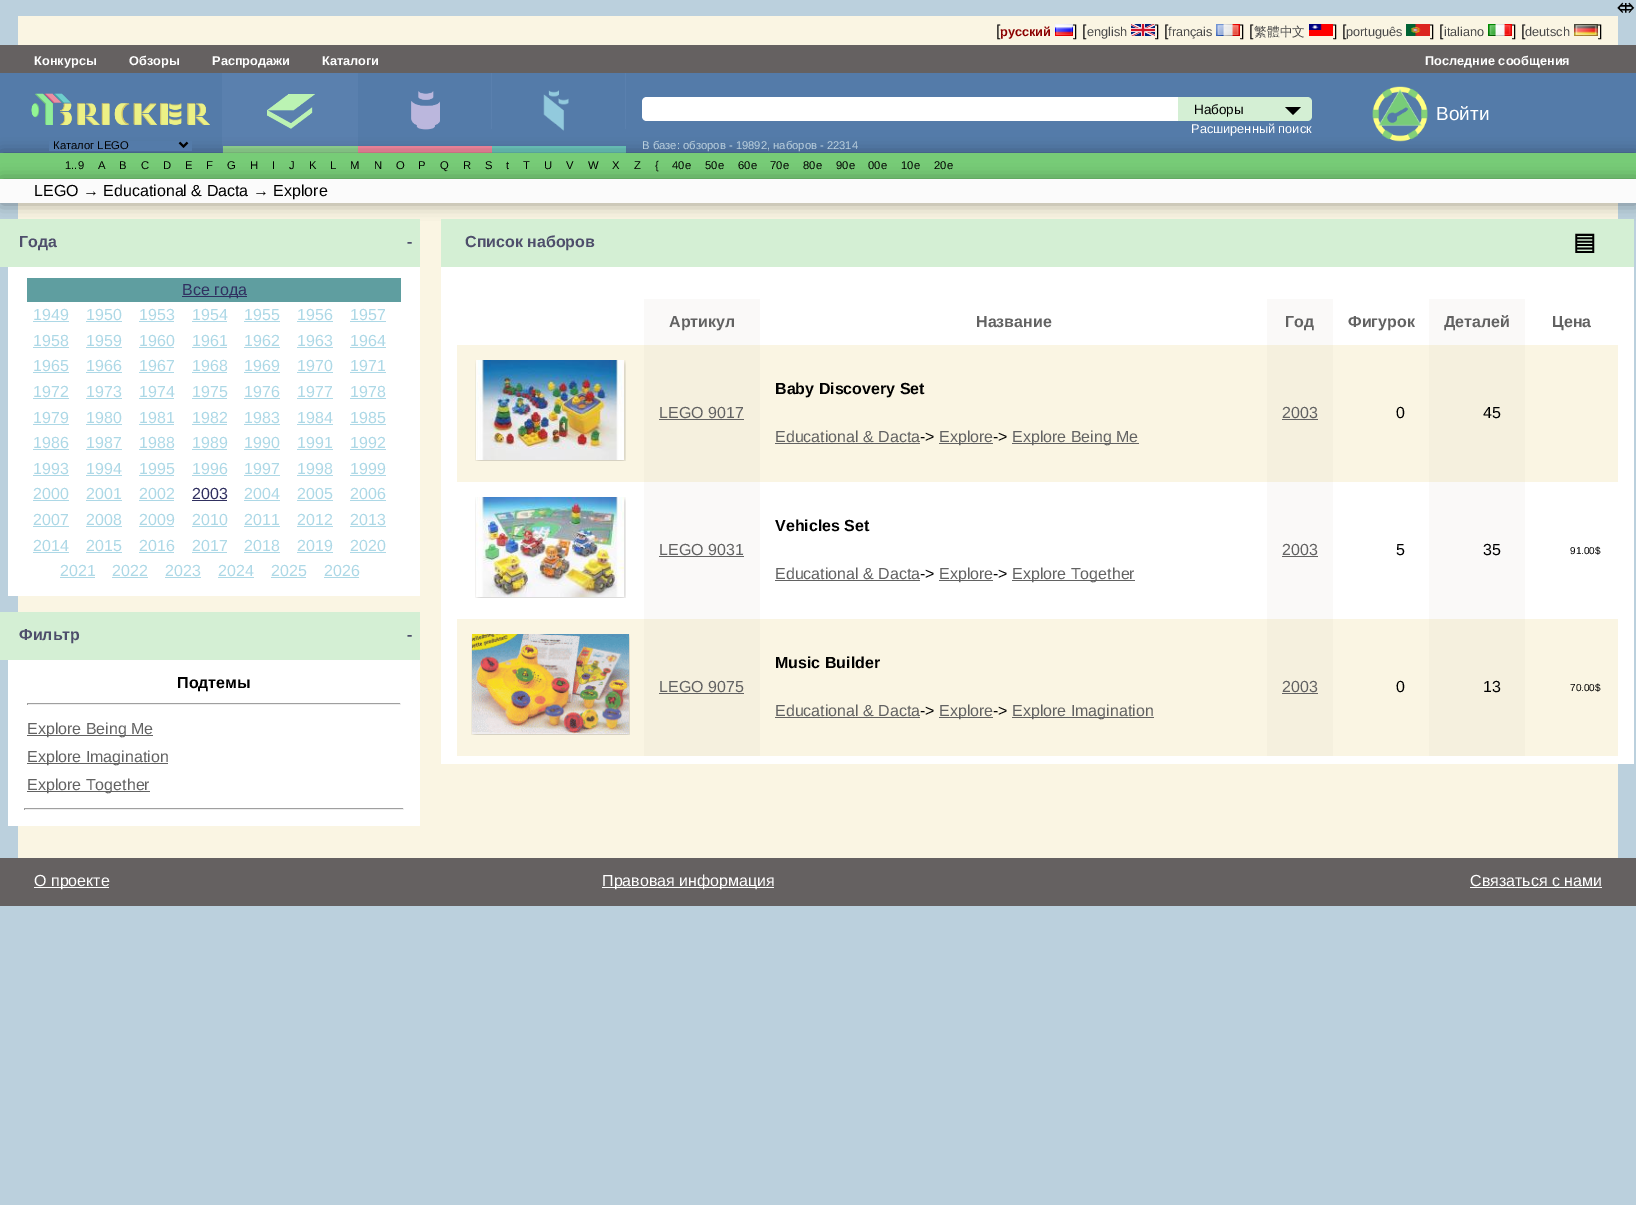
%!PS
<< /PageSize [1636 1205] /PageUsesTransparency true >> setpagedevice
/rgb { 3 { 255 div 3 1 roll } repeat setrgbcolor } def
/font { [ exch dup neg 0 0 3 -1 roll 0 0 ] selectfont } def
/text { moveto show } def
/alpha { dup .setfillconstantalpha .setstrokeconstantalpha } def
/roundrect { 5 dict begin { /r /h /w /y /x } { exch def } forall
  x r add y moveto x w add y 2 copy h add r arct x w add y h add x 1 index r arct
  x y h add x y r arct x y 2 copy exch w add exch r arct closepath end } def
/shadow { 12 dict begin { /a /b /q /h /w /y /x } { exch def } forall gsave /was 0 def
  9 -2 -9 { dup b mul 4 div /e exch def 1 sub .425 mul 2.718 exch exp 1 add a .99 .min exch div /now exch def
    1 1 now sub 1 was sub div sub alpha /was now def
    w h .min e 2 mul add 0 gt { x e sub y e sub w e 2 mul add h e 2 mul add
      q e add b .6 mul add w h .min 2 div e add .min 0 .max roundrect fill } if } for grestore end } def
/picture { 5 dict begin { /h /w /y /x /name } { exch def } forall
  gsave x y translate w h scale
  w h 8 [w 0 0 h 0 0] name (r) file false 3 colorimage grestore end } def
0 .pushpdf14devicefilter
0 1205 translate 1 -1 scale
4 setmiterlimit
187 208 221 rgb
0 0 1636 1205 rectfill
250 245 227 rgb
18 16 1600 29 rectfill
(img_01.rgb) 1055 24 18 12 picture
(img_02.rgb) 1131 24 24 12 picture
(img_03.rgb) 1216 24 24 12 picture
(img_04.rgb) 1309 24 24 12 picture
(img_05.rgb) 1406 24 24 12 picture
(img_06.rgb) 1488 24 24 12 picture
(img_07.rgb) 1574 24 24 12 picture
101 97 97 rgb
0 45 1636 28 rectfill
84 123 169 rgb
0 73 1636 80 rectfill
90 128 174 rgb
223 73 135 73 rectfill
145 214 145 rgb
223 146 135 7 rectfill
(img_08.rgb) 267 94 48 35 picture
90 128 174 rgb
491 73 1 56 rectfill
(img_09.rgb) 411 91 29 39 picture
243 136 158 rgb
358 146 134 7 rectfill
90 128 174 rgb
625 73 1 56 rectfill
107 197 188 rgb
492 146 134 7 rectfill
(img_11.rgb) 1372 86 56 56 picture
90 128 174 rgb
222 73 1 80 rectfill
250 245 227 rgb
18 203 1600 655 rectfill
0 0 0 rgb
1 154 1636 26 0 7.5 0.35 shadow
(img_10.rgb) 543 90 26 41 picture
255 255 255 rgb
647 97 moveto 531 0 rlineto 0 24 rlineto -531 0 rlineto -3 0 -5 -2 -5 -5 rcurveto 0 -14 rlineto 0 -3 2 -5 5 -5 rcurveto closepath fill
212 239 212 rgb
1178 97 moveto 129 0 rlineto 3 0 5 2 5 5 rcurveto 0 14 rlineto 0 3 -2 5 -5 5 rcurveto -129 0 rlineto closepath fill
0 0 0 rgb
1285 107 moveto 16 0 rlineto -8 8 rlineto closepath fill
(img_12.rgb) 31 93 179 32 picture
84 123 169 rgb
49 141 143 10 rectfill
0 0 0 rgb
2 setlinewidth
179.5 142.5 moveto 4 4 rlineto 4 -4 rlineto stroke
119 204 119 rgb
0 153 1636 26 rectfill
0 0 0 rgb
1 180 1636 24 0 7.5 0.35 shadow
251 251 251 rgb
0 179 1636 24 rectfill
212 239 212 rgb
0 219 420 48 rectfill
255 255 255 rgb
8 267 412 329 rectfill
95 158 160 rgb
27 278 374 24 rectfill
48 48 96 rgb
182 296 65 1 rectfill
173 216 230 rgb
33 321 36 1 rectfill
86 321 36 1 rectfill
139 321 35 1 rectfill
192 321 35 1 rectfill
244 321 36 1 rectfill
297 321 36 1 rectfill
350 321 36 1 rectfill
33 347 36 1 rectfill
86 347 36 1 rectfill
139 347 35 1 rectfill
192 347 35 1 rectfill
244 347 36 1 rectfill
297 347 36 1 rectfill
350 347 36 1 rectfill
33 372 36 1 rectfill
86 372 36 1 rectfill
139 372 35 1 rectfill
192 372 35 1 rectfill
244 372 36 1 rectfill
297 372 36 1 rectfill
350 372 36 1 rectfill
33 398 36 1 rectfill
86 398 36 1 rectfill
139 398 35 1 rectfill
192 398 35 1 rectfill
244 398 36 1 rectfill
297 398 36 1 rectfill
350 398 36 1 rectfill
33 424 36 1 rectfill
86 424 36 1 rectfill
139 424 35 1 rectfill
192 424 35 1 rectfill
244 424 36 1 rectfill
297 424 36 1 rectfill
350 424 36 1 rectfill
33 449 36 1 rectfill
86 449 36 1 rectfill
139 449 35 1 rectfill
192 449 35 1 rectfill
244 449 36 1 rectfill
297 449 36 1 rectfill
350 449 36 1 rectfill
33 475 36 1 rectfill
86 475 36 1 rectfill
139 475 35 1 rectfill
192 475 35 1 rectfill
244 475 36 1 rectfill
297 475 36 1 rectfill
350 475 36 1 rectfill
33 500 36 1 rectfill
86 500 36 1 rectfill
139 500 35 1 rectfill
48 48 96 rgb
192 500 35 1 rectfill
173 216 230 rgb
244 500 36 1 rectfill
297 500 36 1 rectfill
350 500 36 1 rectfill
33 526 36 1 rectfill
86 526 36 1 rectfill
139 526 35 1 rectfill
192 526 35 1 rectfill
244 526 36 1 rectfill
297 526 36 1 rectfill
350 526 36 1 rectfill
33 552 36 1 rectfill
86 552 36 1 rectfill
139 552 35 1 rectfill
192 552 35 1 rectfill
244 552 36 1 rectfill
297 552 36 1 rectfill
350 552 36 1 rectfill
60 577 35 1 rectfill
112 577 36 1 rectfill
165 577 36 1 rectfill
218 577 36 1 rectfill
271 577 35 1 rectfill
324 577 35 1 rectfill
212 239 212 rgb
0 612 420 48 rectfill
255 255 255 rgb
8 660 412 166 rectfill
159 159 159 rgb
27 703 374 1 rectfill
238 238 238 rgb
400 703 1 2 rectfill
27 704 374 1 rectfill
159 159 159 rgb
27 703 1 2 rectfill
98 98 98 rgb
27 735 126 1 rectfill
27 763 141 1 rectfill
27 791 123 1 rectfill
159 159 159 rgb
24 808 380 1 rectfill
238 238 238 rgb
403 808 1 2 rectfill
24 809 380 1 rectfill
159 159 159 rgb
24 808 1 2 rectfill
212 239 212 rgb
441 219 1193 48 rectfill
255 255 255 rgb
441 267 1193 497 rectfill
250 249 248 rgb
644 299 116 46 rectfill
1267 299 66 46 rectfill
1429 299 96 46 rectfill
250 245 227 rgb
457 345 187 137 rectfill
(img_13.rgb) 475 360 151 101 picture
245 240 222 rgb
644 345 116 137 rectfill
98 98 98 rgb
659 419 85 1 rectfill
250 245 227 rgb
760 345 507 137 rectfill
98 98 98 rgb
775 443 145 1 rectfill
939 443 54 1 rectfill
1012 443 127 1 rectfill
245 240 222 rgb
1267 345 66 137 rectfill
98 98 98 rgb
1282 419 36 1 rectfill
250 245 227 rgb
1333 345 96 137 rectfill
245 240 222 rgb
1429 345 96 137 rectfill
250 245 227 rgb
1525 345 93 137 rectfill
(img_14.rgb) 475 497 151 101 picture
250 249 248 rgb
644 482 116 137 rectfill
98 98 98 rgb
659 556 85 1 rectfill
775 580 145 1 rectfill
939 580 54 1 rectfill
1012 580 123 1 rectfill
250 249 248 rgb
1267 482 66 137 rectfill
98 98 98 rgb
1282 556 36 1 rectfill
250 249 248 rgb
1429 482 96 137 rectfill
250 245 227 rgb
457 619 187 137 rectfill
(img_15.rgb) 471 634 159 101 picture
245 240 222 rgb
644 619 116 137 rectfill
98 98 98 rgb
659 693 85 1 rectfill
250 245 227 rgb
760 619 507 137 rectfill
98 98 98 rgb
775 717 145 1 rectfill
939 717 54 1 rectfill
1012 717 142 1 rectfill
245 240 222 rgb
1267 619 66 137 rectfill
98 98 98 rgb
1282 693 36 1 rectfill
250 245 227 rgb
1333 619 96 137 rectfill
245 240 222 rgb
1429 619 96 137 rectfill
250 245 227 rgb
1525 619 93 137 rectfill
101 97 97 rgb
0 858 1636 48 rectfill
255 255 255 rgb
34 887 75 1 rectfill
602 887 172 1 rectfill
1470 887 132 1 rectfill
/FreeSerif-Bold 19 font
0 0 0 rgb
(⤄) 1617 13 text
/LiberationSans-Regular 16 font
([) 996 36 text
/LiberationSans-Bold 12.75 font
139 0 0 rgb
(русский) 1000 36 text
/LiberationSans-Regular 16 font
0 0 0 rgb
(] [) 1073 36 text
/LiberationSans-Regular 12.75 font
72 72 72 rgb
(english) 1087 36 text
/LiberationSans-Regular 16 font
0 0 0 rgb
(] [) 1155 36 text
/LiberationSans-Regular 12.75 font
72 72 72 rgb
(français) 1168 36 text
/LiberationSans-Regular 16 font
0 0 0 rgb
(] [) 1240 36 text
/WenQuanYiZenHei-Medium 12.75 font
72 72 72 rgb
(繁體中文) 1254 36 text
/LiberationSans-Regular 16 font
0 0 0 rgb
(] [) 1333 36 text
/LiberationSans-Regular 12.75 font
72 72 72 rgb
(português) 1346 36 text
/LiberationSans-Regular 16 font
0 0 0 rgb
(] [) 1430 36 text
/LiberationSans-Regular 12.75 font
72 72 72 rgb
(italiano) 1444 36 text
/LiberationSans-Regular 16 font
0 0 0 rgb
(] [) 1512 36 text
/LiberationSans-Regular 12.75 font
72 72 72 rgb
(deutsch) 1525 36 text
/LiberationSans-Regular 16 font
0 0 0 rgb
(]) 1598 36 text
/LiberationSans-Bold 12.75 font
255 255 255 rgb
(Конкурсы) 34 65 text
(Обзоры) 129 65 text
(Распродажи) 212 65 text
(Каталоги) 322 65 text
(Последние сообщения) 1425 65 text
/LiberationSans-Regular 13.5 font
0 0 0 rgb
(Наборы) 1194 114 text
/LiberationSans-Regular 12.75 font
255 255 255 rgb
(Расширенный поиск) 1191 133 text
/LiberationSans-Regular 11.25 font
187 208 221 rgb
(В базе: обзоров - 19892, наборов - 22314) 642 149 text
/LiberationSans-Regular 19 font
255 255 255 rgb
(Войти) 1436 120 text
/LiberationSans-Regular 11.25 font
0 0 0 rgb
(Каталог LEGO) 53 149 text
(1..9) 65 169 text
(A) 98 169 text
(B) 119 169 text
(C) 141 169 text
(D) 163 169 text
(E) 185 169 text
(F) 206 169 text
(G) 227 169 text
(H) 250 169 text
(I) 272 169 text
(J) 289 169 text
(K) 309 169 text
(L) 330 169 text
(M) 350 169 text
(N) 374 169 text
(O) 396 169 text
(P) 418 169 text
(Q) 440 169 text
(R) 463 169 text
(S) 485 169 text
(t) 506 169 text
(T) 523 169 text
(U) 544 169 text
(V) 566 169 text
(W) 588 169 text
(X) 612 169 text
(Z) 634 169 text
({) 655 169 text
(40е) 672 169 text
(50е) 705 169 text
(60е) 738 169 text
(70е) 770 169 text
(80е) 803 169 text
(90е) 836 169 text
(00е) 868 169 text
(10е) 901 169 text
(20е) 934 169 text
/LiberationSans-Regular 16 font
(LEGO → Educational & Dacta → Explore) 34 196 text
/LiberationSans-Bold 16 font
78 78 107 rgb
(Года) 19 247 text
(-) 407 247 text
/LiberationSans-Regular 16 font
48 48 96 rgb
(Все года) 182 295 text
173 216 230 rgb
(1949) 33 320 text
(1950) 86 320 text
(1953) 139 320 text
(1954) 192 320 text
(1955) 244 320 text
(1956) 297 320 text
(1957) 350 320 text
(1958) 33 346 text
(1959) 86 346 text
(1960) 139 346 text
(1961) 192 346 text
(1962) 244 346 text
(1963) 297 346 text
(1964) 350 346 text
(1965) 33 371 text
(1966) 86 371 text
(1967) 139 371 text
(1968) 192 371 text
(1969) 244 371 text
(1970) 297 371 text
(1971) 350 371 text
(1972) 33 397 text
(1973) 86 397 text
(1974) 139 397 text
(1975) 192 397 text
(1976) 244 397 text
(1977) 297 397 text
(1978) 350 397 text
(1979) 33 423 text
(1980) 86 423 text
(1981) 139 423 text
(1982) 192 423 text
(1983) 244 423 text
(1984) 297 423 text
(1985) 350 423 text
(1986) 33 448 text
(1987) 86 448 text
(1988) 139 448 text
(1989) 192 448 text
(1990) 244 448 text
(1991) 297 448 text
(1992) 350 448 text
(1993) 33 474 text
(1994) 86 474 text
(1995) 139 474 text
(1996) 192 474 text
(1997) 244 474 text
(1998) 297 474 text
(1999) 350 474 text
(2000) 33 499 text
(2001) 86 499 text
(2002) 139 499 text
48 48 96 rgb
(2003) 192 499 text
173 216 230 rgb
(2004) 244 499 text
(2005) 297 499 text
(2006) 350 499 text
(2007) 33 525 text
(2008) 86 525 text
(2009) 139 525 text
(2010) 192 525 text
(2011) 244 525 text
(2012) 297 525 text
(2013) 350 525 text
(2014) 33 551 text
(2015) 86 551 text
(2016) 139 551 text
(2017) 192 551 text
(2018) 244 551 text
(2019) 297 551 text
(2020) 350 551 text
(2021) 60 576 text
(2022) 112 576 text
(2023) 165 576 text
(2024) 218 576 text
(2025) 271 576 text
(2026) 324 576 text
/LiberationSans-Bold 16 font
78 78 107 rgb
(Фильтр) 19 640 text
(-) 407 640 text
0 0 0 rgb
(Подтемы) 177 688 text
/LiberationSans-Regular 16 font
98 98 98 rgb
(Explore Being Me) 27 734 text
(Explore Imagination) 27 762 text
(Explore Together) 27 790 text
/LiberationSans-Bold 16 font
78 78 107 rgb
(Список наборов) 465 247 text
/DejaVuSans-Bold 24 font
0 0 0 rgb
(▤) 1573 250 text
/LiberationSans-Bold 16 font
98 98 98 rgb
(Артикул) 669 327 text
(Название) 976 327 text
(Год) 1285 327 text
(Фигурок) 1348 327 text
(Деталей) 1444 327 text
(Цена) 1552 327 text
/LiberationSans-Regular 16 font
(LEGO 9017) 659 418 text
/LiberationSans-Bold 16 font
0 0 0 rgb
(Baby Discovery Set) 775 394 text
/LiberationSans-Regular 16 font
98 98 98 rgb
(Educational & Dacta) 775 442 text
0 0 0 rgb
(->) 920 442 text
98 98 98 rgb
(Explore) 939 442 text
0 0 0 rgb
(->) 993 442 text
98 98 98 rgb
(Explore Being Me) 1012 442 text
(2003) 1282 418 text
0 0 0 rgb
(0) 1396 418 text
(45) 1483 418 text
98 98 98 rgb
(LEGO 9031) 659 555 text
/LiberationSans-Bold 16 font
0 0 0 rgb
(Vehicles Set) 775 531 text
/LiberationSans-Regular 16 font
98 98 98 rgb
(Educational & Dacta) 775 579 text
0 0 0 rgb
(->) 920 579 text
98 98 98 rgb
(Explore) 939 579 text
0 0 0 rgb
(->) 993 579 text
98 98 98 rgb
(Explore Together) 1012 579 text
(2003) 1282 555 text
0 0 0 rgb
(5) 1396 555 text
(35) 1483 555 text
/LiberationSans-Regular 10 font
(91.00$) 1570 554 text
/LiberationSans-Regular 16 font
98 98 98 rgb
(LEGO 9075) 659 692 text
/LiberationSans-Bold 16 font
0 0 0 rgb
(Music Builder) 775 668 text
/LiberationSans-Regular 16 font
98 98 98 rgb
(Educational & Dacta) 775 716 text
0 0 0 rgb
(->) 920 716 text
98 98 98 rgb
(Explore) 939 716 text
0 0 0 rgb
(->) 993 716 text
98 98 98 rgb
(Explore Imagination) 1012 716 text
(2003) 1282 692 text
0 0 0 rgb
(0) 1396 692 text
(13) 1483 692 text
/LiberationSans-Regular 10 font
(70.00$) 1570 691 text
/LiberationSans-Regular 16 font
255 255 255 rgb
(О проекте) 34 886 text
(Правовая информация) 602 886 text
(Связаться с нами) 1470 886 text
.poppdf14devicefilter showpage
